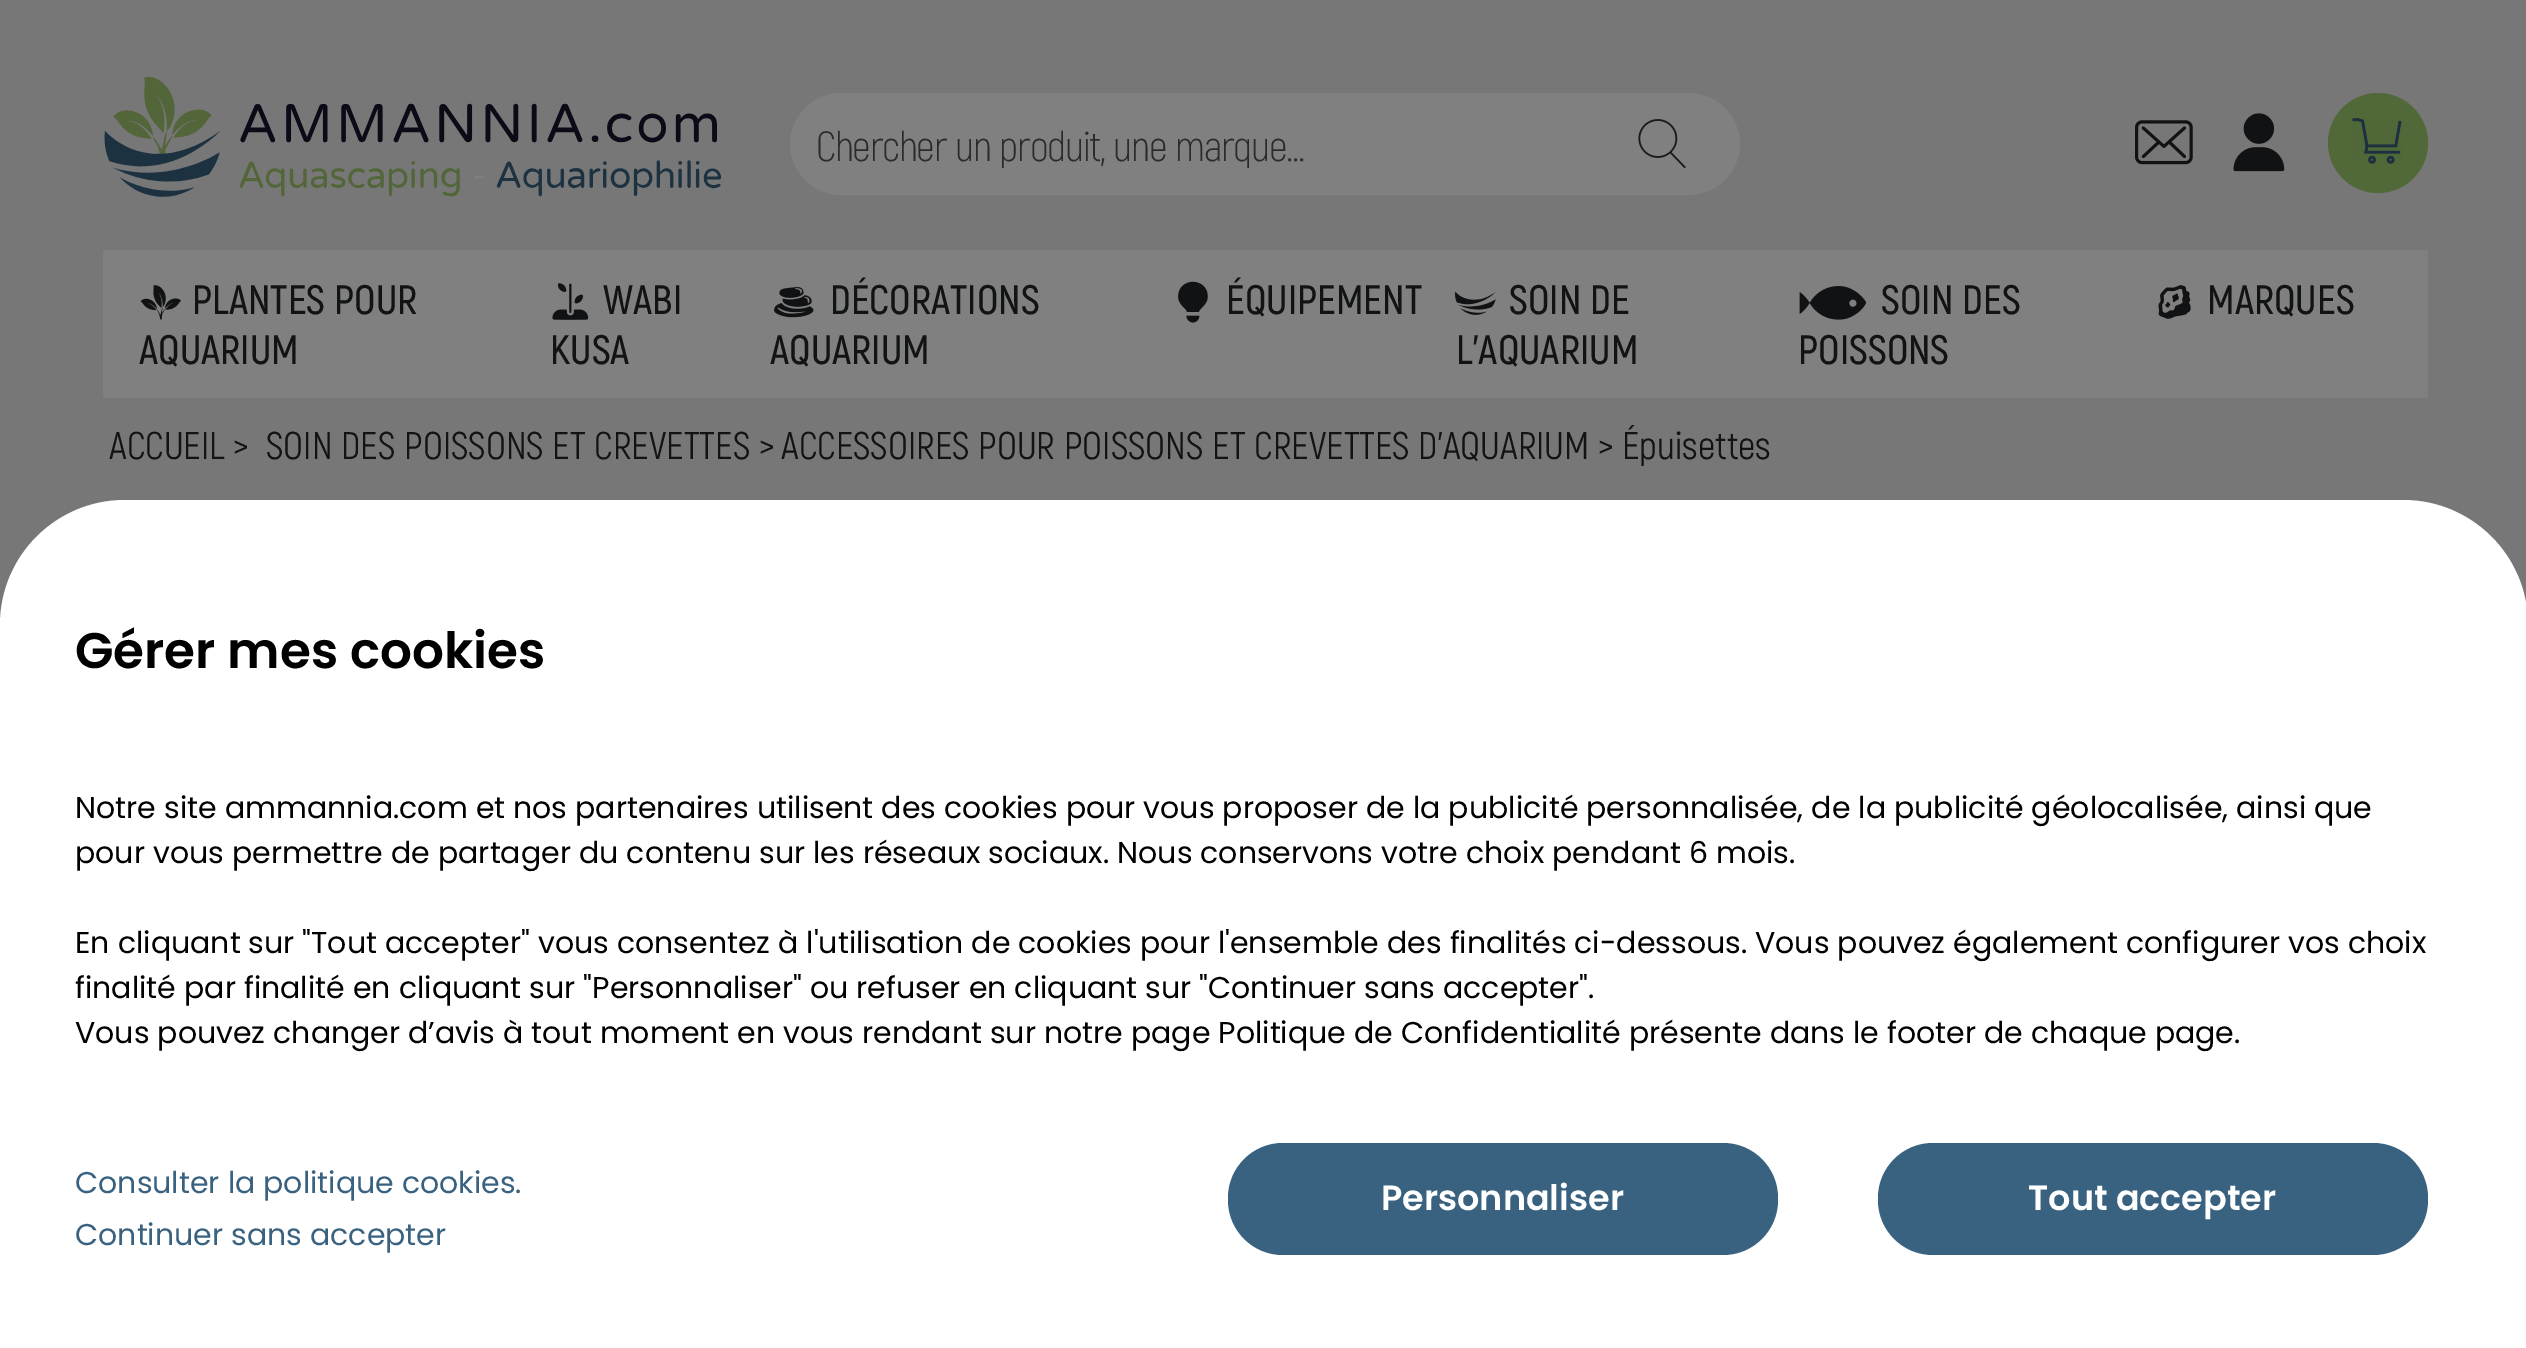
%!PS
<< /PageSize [2526 1348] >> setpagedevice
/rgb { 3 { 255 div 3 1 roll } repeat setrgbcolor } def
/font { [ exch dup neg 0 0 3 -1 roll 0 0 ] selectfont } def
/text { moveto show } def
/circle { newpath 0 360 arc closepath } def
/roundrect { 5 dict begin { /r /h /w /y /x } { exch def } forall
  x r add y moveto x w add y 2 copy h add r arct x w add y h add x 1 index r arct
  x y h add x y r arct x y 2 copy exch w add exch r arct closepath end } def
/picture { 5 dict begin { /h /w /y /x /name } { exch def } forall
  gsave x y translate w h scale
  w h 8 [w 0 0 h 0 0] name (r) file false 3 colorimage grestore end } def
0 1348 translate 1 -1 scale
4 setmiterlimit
119 119 119 rgb
0 0 2526 1348 rectfill
(img_01.rgb) 104 76 618 121 picture
128 128 128 rgb
3 setlinewidth
791.5 94.5 947 99 49.5 roundrect stroke
793 95 945 98 49 roundrect fill
(img_02.rgb) 1638 119 48 49 picture
(img_03.rgb) 2135 120 58 45 picture
(img_04.rgb) 2233 113 52 59 picture
81 105 56 rgb
2378 143 50 circle fill
(img_05.rgb) 2352 118 50 46 picture
128 128 128 rgb
103 250 2325 148 rectfill
(img_06.rgb) 140 285 41 35 picture
(img_07.rgb) 552 283 37 37 picture
(img_08.rgb) 774 287 40 31 picture
(img_09.rgb) 1178 281 30 42 picture
(img_10.rgb) 1455 291 41 24 picture
(img_11.rgb) 1799 286 68 34 picture
(img_12.rgb) 2158 285 33 34 picture
255 255 255 rgb
125 500 moveto 2278 0 rlineto 69 0 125 56 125 125 rcurveto 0 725 rlineto -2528 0 rlineto 0 -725 rlineto 0 -69 56 -125 125 -125 rcurveto closepath fill
57 98 128 rgb
1228 1143 550 112 55 roundrect fill
1878 1143 550 112 55 roundrect fill
gsave
818 118 757 50 rectclip
/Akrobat-Light 42 font
43 43 43 rgb
816 161 moveto -1.25 0 (Chercher un produit, une marque...) ashow
grestore
/Akrobat-SemiBold 41 font
17 19 21 rgb
(PLANTES POUR) 192 314 text
(AQUARIUM) 139 364 text
(WABI) 603 314 text
(KUSA) 550 364 text
(DÉCORATIONS) 830 314 text
(AQUARIUM) 770 364 text
(ÉQUIPEMENT) 1226 314 text
(SOIN DE) 1509 314 text
(L'AQUARIUM) 1456 364 text
(SOIN DES) 1881 314 text
(POISSONS) 1798 364 text
(MARQUES) 2207 314 text
/Akrobat-Regular 38.5 font
(ACCUEIL >) 109 459 text
(SOIN DES POISSONS ET CREVETTES >) 266 459 text
(ACCESSOIRES POUR POISSONS ET CREVETTES D'AQUARIUM) 781 459 text
(>) 1598 459 text
(Épuisettes) 1622 459 text
/Poppins-SemiBold 50 font
0 0 0 rgb
(Gérer mes cookies) 75 668 text
/Poppins-Regular 30 font
(Notre site ammannia.com et nos partenaires utilisent des cookies pour vous proposer de la publicité personnalisée, de la publicité géolocalisée, ainsi que) 75 818 text
(pour vous permettre de partager du contenu sur les réseaux sociaux. Nous conservons votre choix pendant 6 mois.) 75 863 text
(En cliquant sur "Tout accepter" vous consentez à l'utilisation de cookies pour l'ensemble des finalités ci-dessous. Vous pouvez également configurer vos choix) 75 953 text
(finalité par finalité en cliquant sur "Personnaliser" ou refuser en cliquant sur "Continuer sans accepter".) 75 998 text
(Vous pouvez changer d’avis à tout moment en vous rendant sur notre page Politique de Confidentialité présente dans le footer de chaque page.) 75 1043 text
57 98 128 rgb
(Consulter la politique cookies.) 75 1193 text
(Continuer sans accepter) 75 1245 text
/Poppins-SemiBold 35 font
255 255 255 rgb
(Personnaliser) 1381 1210 text
(Tout accepter) 2028 1210 text
showpage
